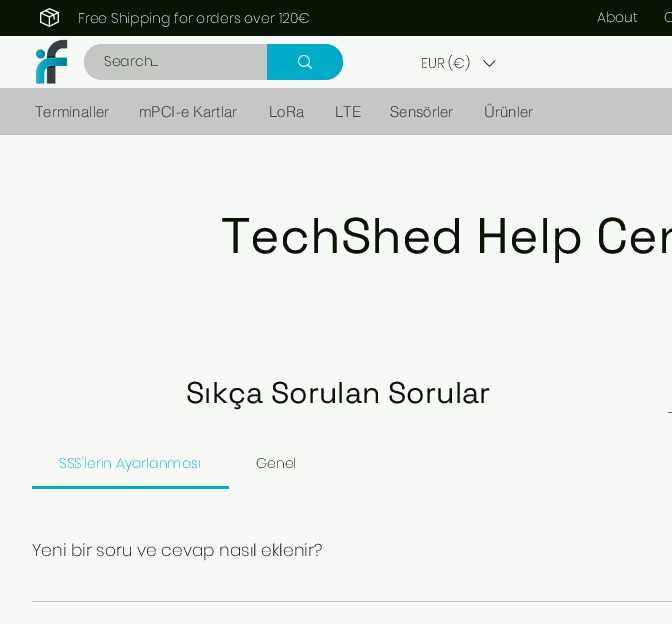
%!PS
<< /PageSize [672 624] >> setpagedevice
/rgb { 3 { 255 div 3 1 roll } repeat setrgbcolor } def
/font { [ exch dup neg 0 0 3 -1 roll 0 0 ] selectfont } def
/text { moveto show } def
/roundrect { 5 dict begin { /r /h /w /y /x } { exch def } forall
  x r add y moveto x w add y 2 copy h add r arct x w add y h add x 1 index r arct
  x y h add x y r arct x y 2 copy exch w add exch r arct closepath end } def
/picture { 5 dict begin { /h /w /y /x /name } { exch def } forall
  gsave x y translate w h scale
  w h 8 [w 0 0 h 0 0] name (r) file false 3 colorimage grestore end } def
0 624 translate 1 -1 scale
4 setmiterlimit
246 249 245 rgb
0 0 672 624 rectfill
9 20 5 rgb
0 0 672 36 rectfill
(img_01.rgb) 40 8 19 19 picture
(img_02.rgb) 35 39 33 45 picture
197 199 196 rgb
84 44 259 36 18 roundrect fill
2 171 197 rgb
267 44 moveto 58 0 rlineto 10 0 18 8 18 18 rcurveto 0 10 -8 18 -18 18 rcurveto -58 0 rlineto closepath fill
(img_03.rgb) 298 55 14 14 picture
(img_04.rgb) 483 60 13 7 picture
197 199 196 rgb
0 88 672 47 rectfill
104 112 101 rgb
668 412 4 1 rectfill
2 171 197 rgb
32 486 197 3 rectfill
197 199 196 rgb
32 601 640 1 rectfill
/Poppins-ExtraLight 14 font
246 249 245 rgb
(Free Shipping for orders over 120€) 78 23 text
(About) 597 22 text
(C) 664 22 text
9 20 5 rgb
(Search...) 104 66 text
gsave
421 55 54 17 rectclip
(EUR \(€\)) 421 68 text
grestore
/helvetica-Light 15 font
68 68 68 rgb
(Terminaller) 35 117 text
(mPCI-e Kartlar) 139 117 text
(LoRa) 269 117 text
(LTE) 335 117 text
(Sensörler) 390 117 text
(Ürünler) 484 117 text
/SpaceGrotesk-Regular 50 font
9 20 5 rgb
(TechShed Help Cen) 221 253 text
/SpaceGrotesk-Regular 30 font
(Sıkça Sorulan Sorular) 186 403 text
/Poppins-ExtraLight 14 font
2 171 197 rgb
(SSS'lerin Ayarlanması) 59 468 text
9 20 5 rgb
(Genel) 256 468 text
/Poppins-ExtraLight 17 font
(Yeni bir soru ve cevap nasıl eklenir?) 32 556 text
showpage
